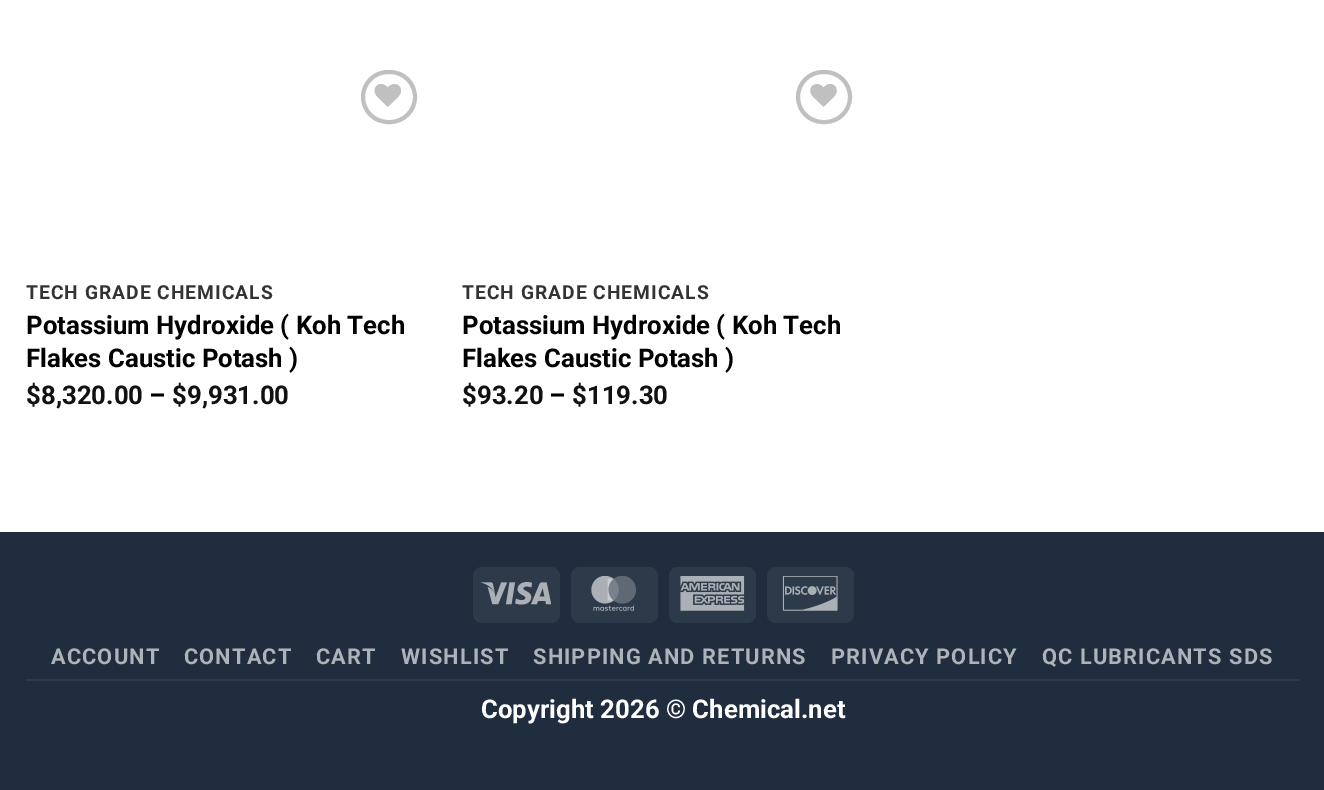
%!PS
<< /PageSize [1324 790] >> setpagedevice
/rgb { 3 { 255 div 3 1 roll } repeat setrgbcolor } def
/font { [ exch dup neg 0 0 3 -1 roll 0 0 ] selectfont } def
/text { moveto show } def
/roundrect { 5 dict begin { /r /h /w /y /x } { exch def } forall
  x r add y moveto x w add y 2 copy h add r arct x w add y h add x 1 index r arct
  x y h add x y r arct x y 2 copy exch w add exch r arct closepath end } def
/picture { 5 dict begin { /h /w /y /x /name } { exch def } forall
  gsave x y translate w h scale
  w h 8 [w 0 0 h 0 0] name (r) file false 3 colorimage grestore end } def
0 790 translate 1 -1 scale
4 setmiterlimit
255 255 255 rgb
0 0 1324 790 rectfill
192 192 192 rgb
4 setlinewidth
363 72 52 50 25 roundrect stroke
(img_01.rgb) 374 84 27 23 picture
798 72 52 50 25 roundrect stroke
(img_02.rgb) 810 84 27 23 picture
32 45 62 rgb
0 532 1324 258 rectfill
45 58 74 rgb
473 567 87 56 9 roundrect fill
(img_03.rgb) 481 581 70 24 picture
571 567 87 56 9 roundrect fill
(img_04.rgb) 591 576 46 35 picture
669 567 87 56 9 roundrect fill
(img_05.rgb) 680 576 65 35 picture
767 567 87 56 9 roundrect fill
(img_06.rgb) 782 576 56 35 picture
46 58 74 rgb
26 679 1273 2 rectfill
/Roboto-Bold 19.25 font
51 51 51 rgb
26 299 moveto 1 0 (TECH GRADE CHEMICALS) ashow
/Roboto-Bold 25.75 font
0 0 0 rgb
(Potassium Hydroxide \( Koh Tech) 26 334 text
(Flakes Caustic Potash \)) 26 367 text
17 17 17 rgb
($8,320.00) 26 404 text
0 0 0 rgb
(–) 149 404 text
17 17 17 rgb
($9,931.00) 172 404 text
/Roboto-Bold 19.25 font
51 51 51 rgb
462 299 moveto 1 0 (TECH GRADE CHEMICALS) ashow
/Roboto-Bold 25.75 font
0 0 0 rgb
(Potassium Hydroxide \( Koh Tech) 462 334 text
(Flakes Caustic Potash \)) 462 367 text
17 17 17 rgb
($93.20) 462 404 text
0 0 0 rgb
(–) 549 404 text
17 17 17 rgb
($119.30) 572 404 text
/Roboto-Bold 21.8 font
174 179 185 rgb
51 664 moveto 1.1 0 (ACCOUNT) ashow
184 664 moveto 1.1 0 (CONTACT) ashow
316 664 moveto 1.1 0 (CART) ashow
401 664 moveto 1.1 0 (WISHLIST) ashow
533 664 moveto 1.1 0 (SHIPPING AND RETURNS) ashow
831 664 moveto 1.1 0 (PRIVACY POLICY) ashow
1042 664 moveto 1.1 0 (QC LUBRICANTS SDS) ashow
/Roboto-Bold 25.75 font
255 255 255 rgb
(Copyright 2026 © Chemical.net) 481 718 text
showpage
